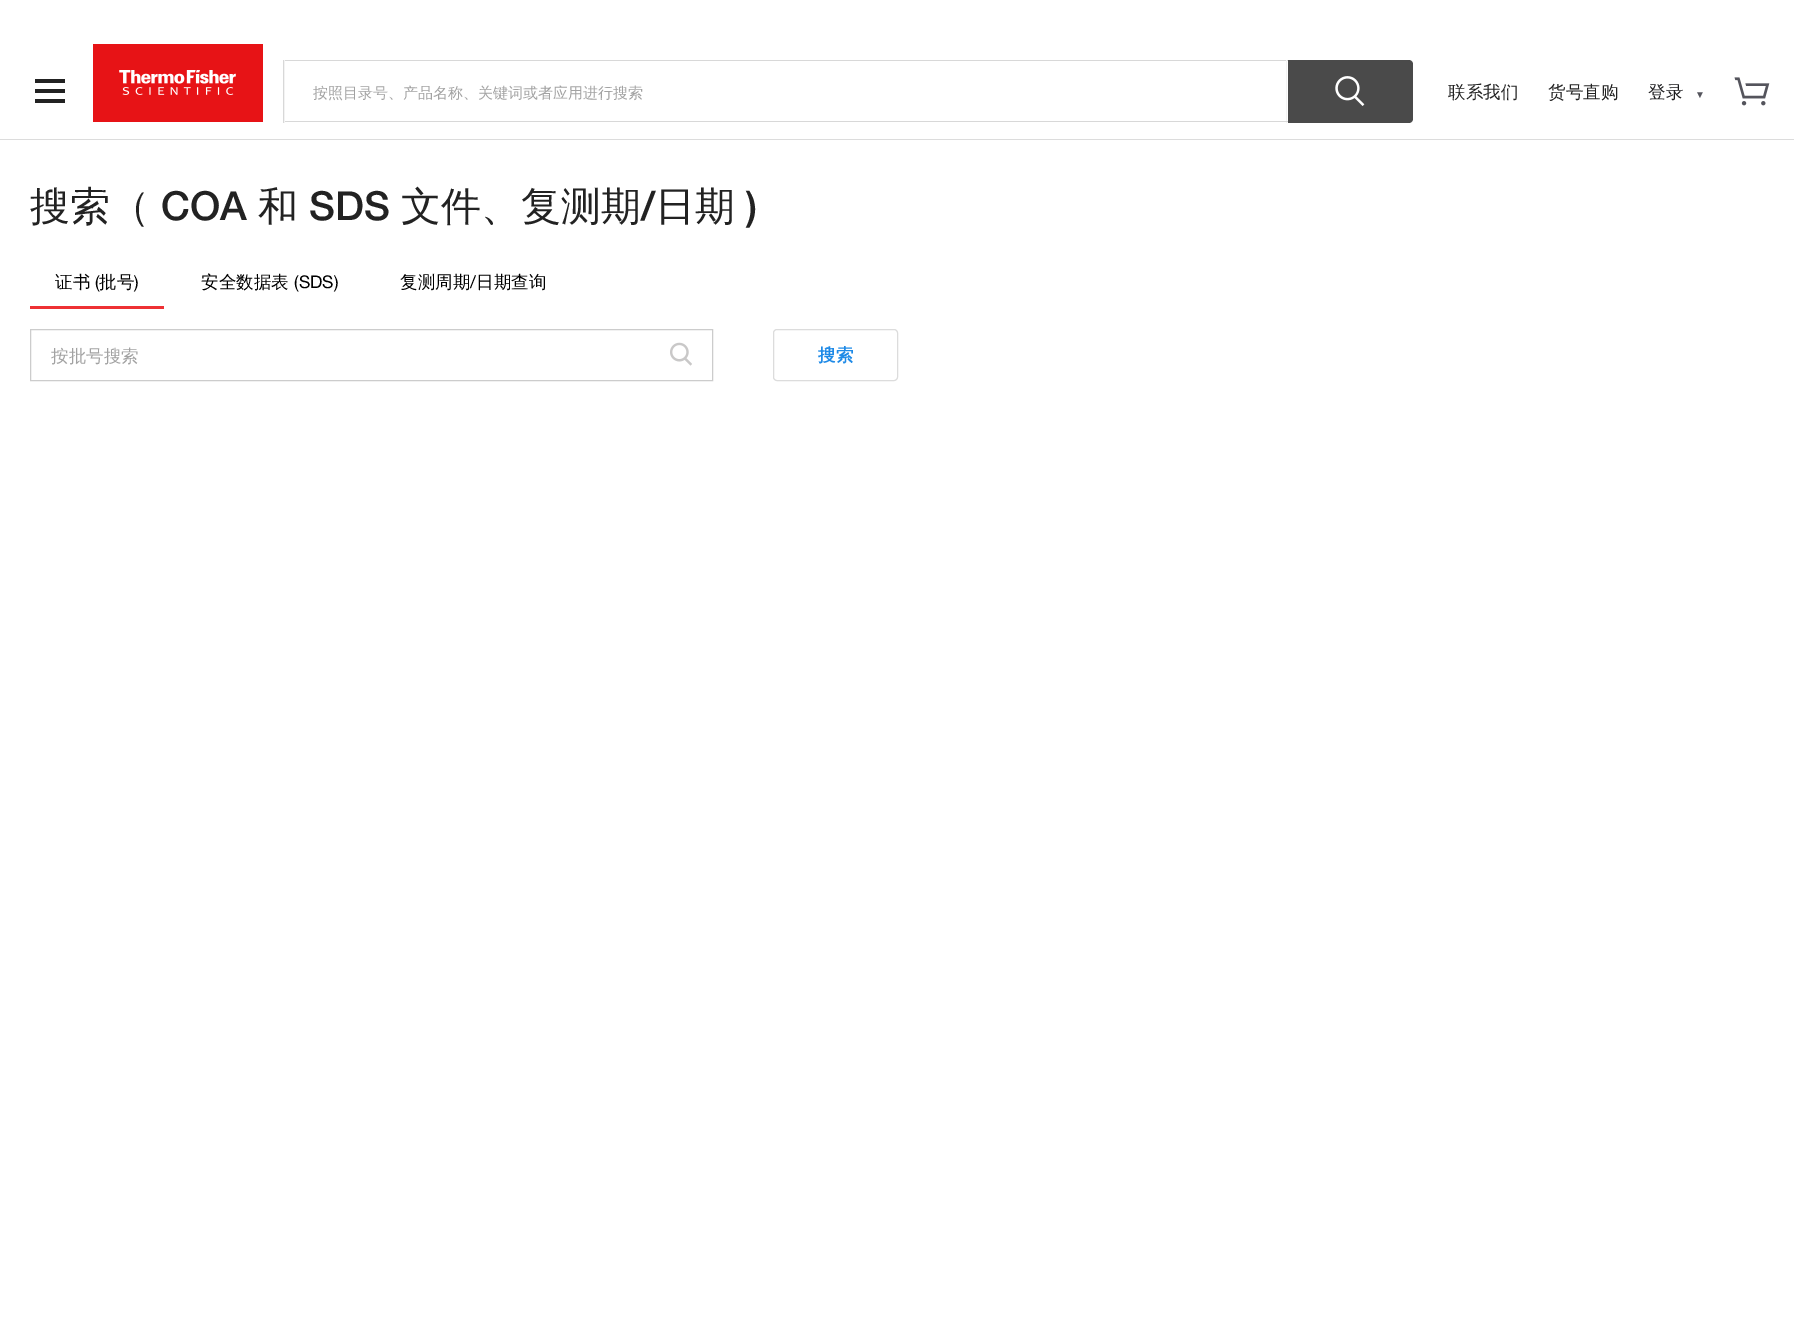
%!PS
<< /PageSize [1794 1320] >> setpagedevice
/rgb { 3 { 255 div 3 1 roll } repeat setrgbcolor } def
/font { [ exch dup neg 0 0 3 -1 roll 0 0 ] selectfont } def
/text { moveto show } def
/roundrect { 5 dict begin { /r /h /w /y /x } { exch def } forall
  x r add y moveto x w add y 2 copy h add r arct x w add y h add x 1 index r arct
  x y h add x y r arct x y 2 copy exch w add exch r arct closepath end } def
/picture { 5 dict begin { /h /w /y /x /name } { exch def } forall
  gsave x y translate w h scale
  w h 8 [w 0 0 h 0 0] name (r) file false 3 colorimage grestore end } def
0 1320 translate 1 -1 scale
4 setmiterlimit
255 255 255 rgb
0 0 1794 1320 rectfill
220 220 220 rgb
0 139 1794 1 rectfill
34 34 34 rgb
35 89 30 4 rectfill
35 79 30 4 rectfill
35 99 30 4 rectfill
(img_01.rgb) 93 44 170 78 picture
216 216 216 rgb
283 60 1 63 rectfill
284 60 1004 1 rectfill
243 243 243 rgb
1286 60 1 63 rectfill
216 216 216 rgb
284 121 1004 1 rectfill
243 243 243 rgb
284 60 1 63 rectfill
74 74 74 rgb
1288 60 moveto 121 0 rlineto 2 0 4 2 4 4 rcurveto 0 55 rlineto 0 2 -2 4 -4 4 rcurveto -121 0 rlineto closepath fill
(img_02.rgb) 1335 76 30 30 picture
(img_03.rgb) 1734 77 36 29 picture
238 49 52 rgb
30 306 134 3 rectfill
204 204 204 rgb
30.5 329.5 682 51 rectstroke
(img_04.rgb) 670 342 22 24 picture
220 220 220 rgb
773.5 329.5 124 51 3.5 roundrect stroke
gsave
313 84 913 21 rectclip
/WenQuanYiZenHei-Medium 15 font
162 162 162 rgb
(按照目录号、产品名称、关键词或者应用进行搜索) 313 98 text
grestore
/WenQuanYiZenHei-Medium 17.5 font
34 34 34 rgb
(联系我们) 1448 98 text
(货号直购) 1548 98 text
27 27 29 rgb
(登录) 1648 98 text
/LiberationSans-Regular 10 font
84 84 92 rgb
(▼) 1695 98 text
/WenQuanYiZenHei-Medium 40 font
34 34 34 rgb
(搜索（) 30 220 text
/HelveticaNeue-Medium 40 font
(COA) 161 220 text
/WenQuanYiZenHei-Medium 40 font
(和) 258 220 text
/HelveticaNeue-Medium 40 font
(SDS) 309 220 text
/WenQuanYiZenHei-Medium 40 font
(文件、复测期) 401 220 text
/HelveticaNeue-Medium 40 font
(/) 641 220 text
/WenQuanYiZenHei-Medium 40 font
(日期) 655 220 text
/HelveticaNeue-Medium 40 font
(\)) 746 220 text
/WenQuanYiZenHei-Medium 17.5 font
0 0 0 rgb
(证书) 55 288 text
/HelveticaNeue-Regular 17.5 font
(\() 95 288 text
/WenQuanYiZenHei-Medium 17.5 font
(批号) 99 288 text
/HelveticaNeue-Regular 17.5 font
(\)) 134 288 text
/WenQuanYiZenHei-Medium 17.5 font
(安全数据表) 201 288 text
/HelveticaNeue-Regular 17.5 font
(\(SDS\)) 294 288 text
/WenQuanYiZenHei-Medium 17.5 font
(复测周期) 400 288 text
/HelveticaNeue-Regular 17.5 font
(/) 470 288 text
/WenQuanYiZenHei-Medium 17.5 font
(日期查询) 476 288 text
162 162 162 rgb
(按批号搜索) 51 362 text
/WenQuanYiZenHei-Bold 17.5 font
30 138 231 rgb
(搜索) 818 361 text
showpage
